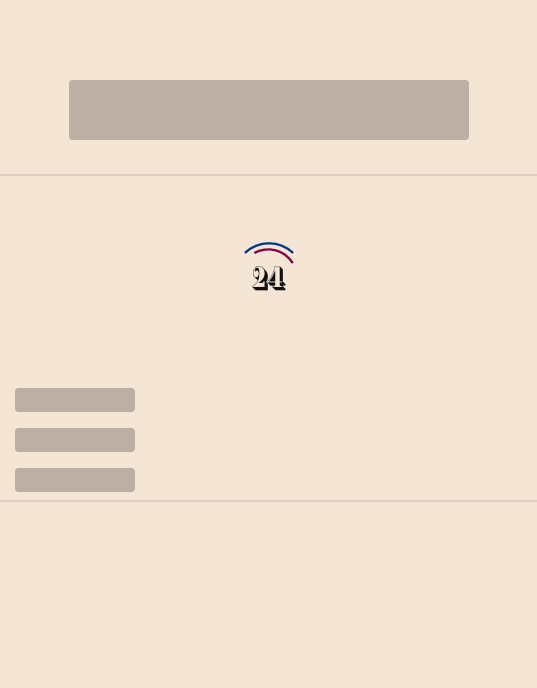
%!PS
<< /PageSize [537 688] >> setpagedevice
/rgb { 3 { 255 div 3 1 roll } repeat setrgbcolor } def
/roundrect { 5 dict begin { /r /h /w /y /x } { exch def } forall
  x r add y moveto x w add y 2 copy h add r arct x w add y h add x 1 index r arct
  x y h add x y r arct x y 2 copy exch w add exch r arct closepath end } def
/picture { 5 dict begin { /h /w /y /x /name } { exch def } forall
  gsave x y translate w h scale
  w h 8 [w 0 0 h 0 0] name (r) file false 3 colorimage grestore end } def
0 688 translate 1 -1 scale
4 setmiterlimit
245 229 213 rgb
0 0 537 688 rectfill
221 206 192 rgb
0 174 537 2 rectfill
188 176 164 rgb
69 80 400 60 4 roundrect fill
0 60 127 rgb
2 setlinewidth
245 253 moveto 13 -13 35 -13 48 0 rcurveto stroke
135 0 66 rgb
254.5 253 moveto 13 -7.5 30.5 -3 38 10 rcurveto stroke
(img_01.rgb) 252 266 34 25 picture
188 176 164 rgb
15 388 120 24 4 roundrect fill
15 428 120 24 4 roundrect fill
221 206 192 rgb
0 500 537 2 rectfill
188 176 164 rgb
15 468 120 24 4 roundrect fill
showpage
